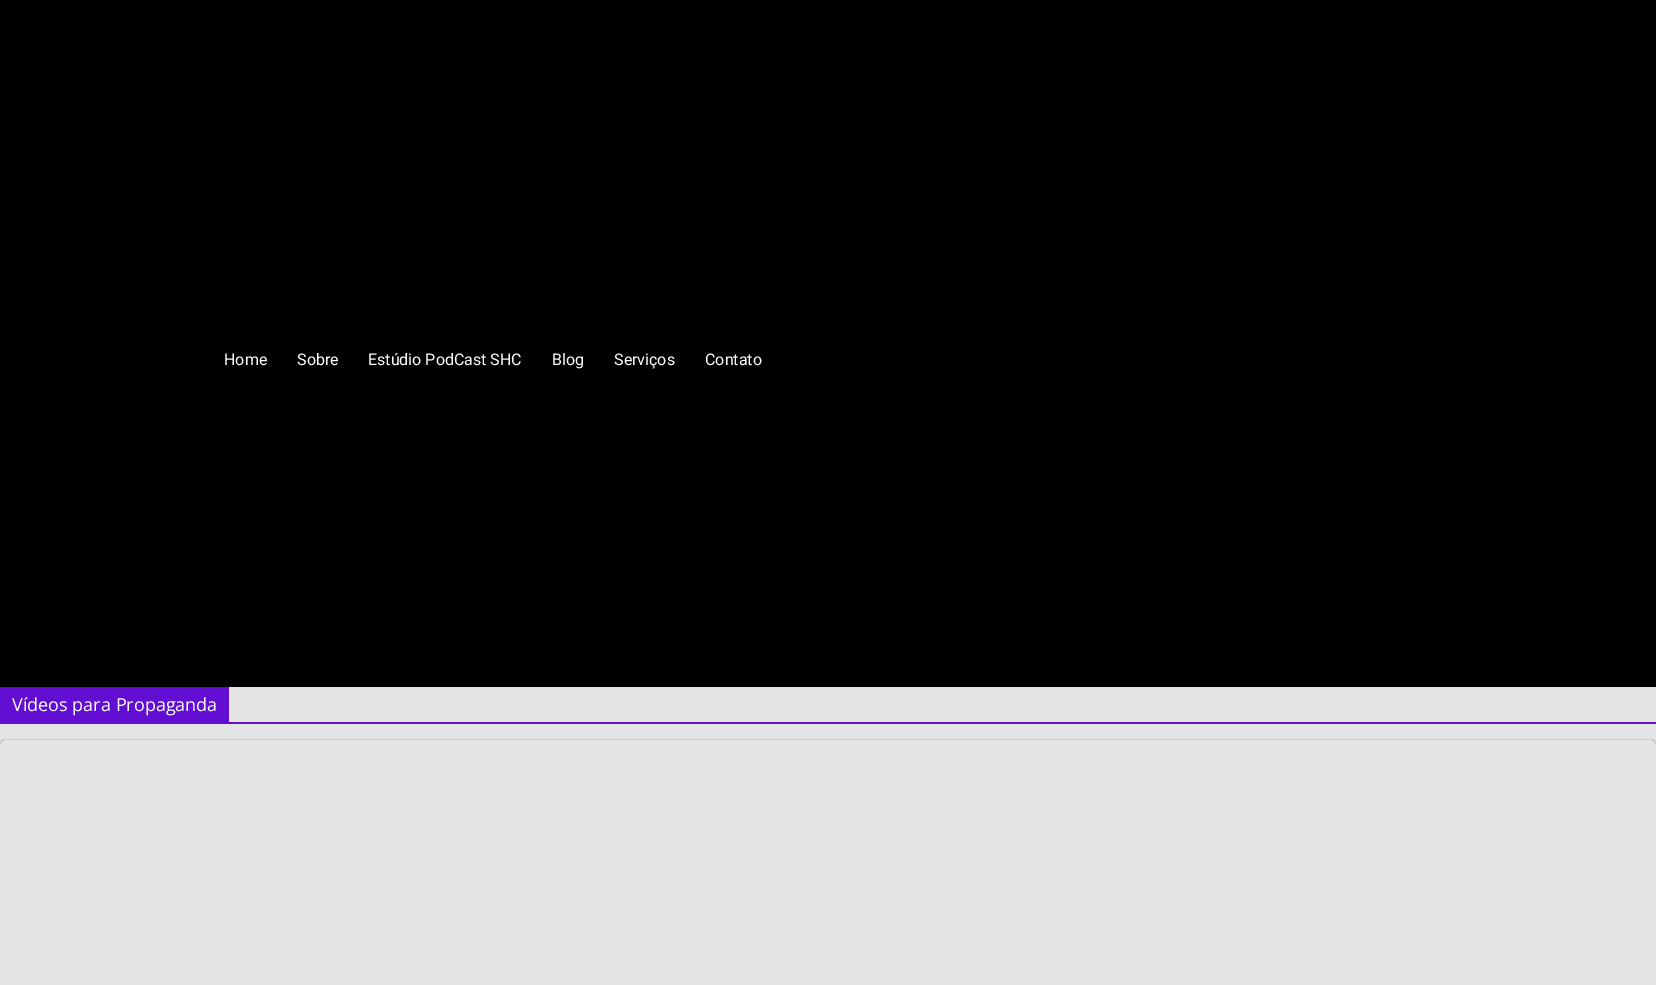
%!PS
<< /PageSize [1656 985] /PageUsesTransparency true >> setpagedevice
/rgb { 3 { 255 div 3 1 roll } repeat setrgbcolor } def
/font { [ exch dup neg 0 0 3 -1 roll 0 0 ] selectfont } def
/text { moveto show } def
/alpha { dup .setfillconstantalpha .setstrokeconstantalpha } def
/roundrect { 5 dict begin { /r /h /w /y /x } { exch def } forall
  x r add y moveto x w add y 2 copy h add r arct x w add y h add x 1 index r arct
  x y h add x y r arct x y 2 copy exch w add exch r arct closepath end } def
/shadow { 12 dict begin { /a /b /q /h /w /y /x } { exch def } forall gsave /was 0 def
  9 -2 -9 { dup b mul 4 div /e exch def 1 sub .425 mul 2.718 exch exp 1 add a .99 .min exch div /now exch def
    1 1 now sub 1 was sub div sub alpha /was now def
    w h .min e 2 mul add 0 gt { x e sub y e sub w e 2 mul add h e 2 mul add
      q e add b .6 mul add w h .min 2 div e add .min 0 .max roundrect fill } if } for grestore end } def
0 .pushpdf14devicefilter
0 985 translate 1 -1 scale
4 setmiterlimit
228 228 231 rgb
0 0 1656 985 rectfill
0 0 0 rgb
0 0 1656 687 rectfill
97 13 210 rgb
0 722 1656 2 rectfill
0 687 229 35 rectfill
gsave
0 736 moveto 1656 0 rlineto 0 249 rlineto -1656 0 rlineto closepath 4 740 moveto 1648 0 rlineto 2 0 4 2 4 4 rcurveto 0 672 rlineto 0 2 -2 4 -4 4 rcurveto -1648 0 rlineto -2 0 -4 -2 -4 -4 rcurveto 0 -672 rlineto 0 -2 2 -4 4 -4 rcurveto closepath eoclip newpath
0 0 0 rgb
0 740 1656 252 4 1 0.24 shadow
grestore
/Roboto-Regular 16 font
255 255 255 rgb
(Home) 224 365 text
(Sobre) 297 365 text
(Estúdio PodCast SHC) 368 365 text
(Blog) 552 365 text
(Serviços) 614 365 text
(Contato) 705 365 text
/OpenSans-Regular 18 font
(Vídeos para Propaganda) 12 711 text
.poppdf14devicefilter showpage
